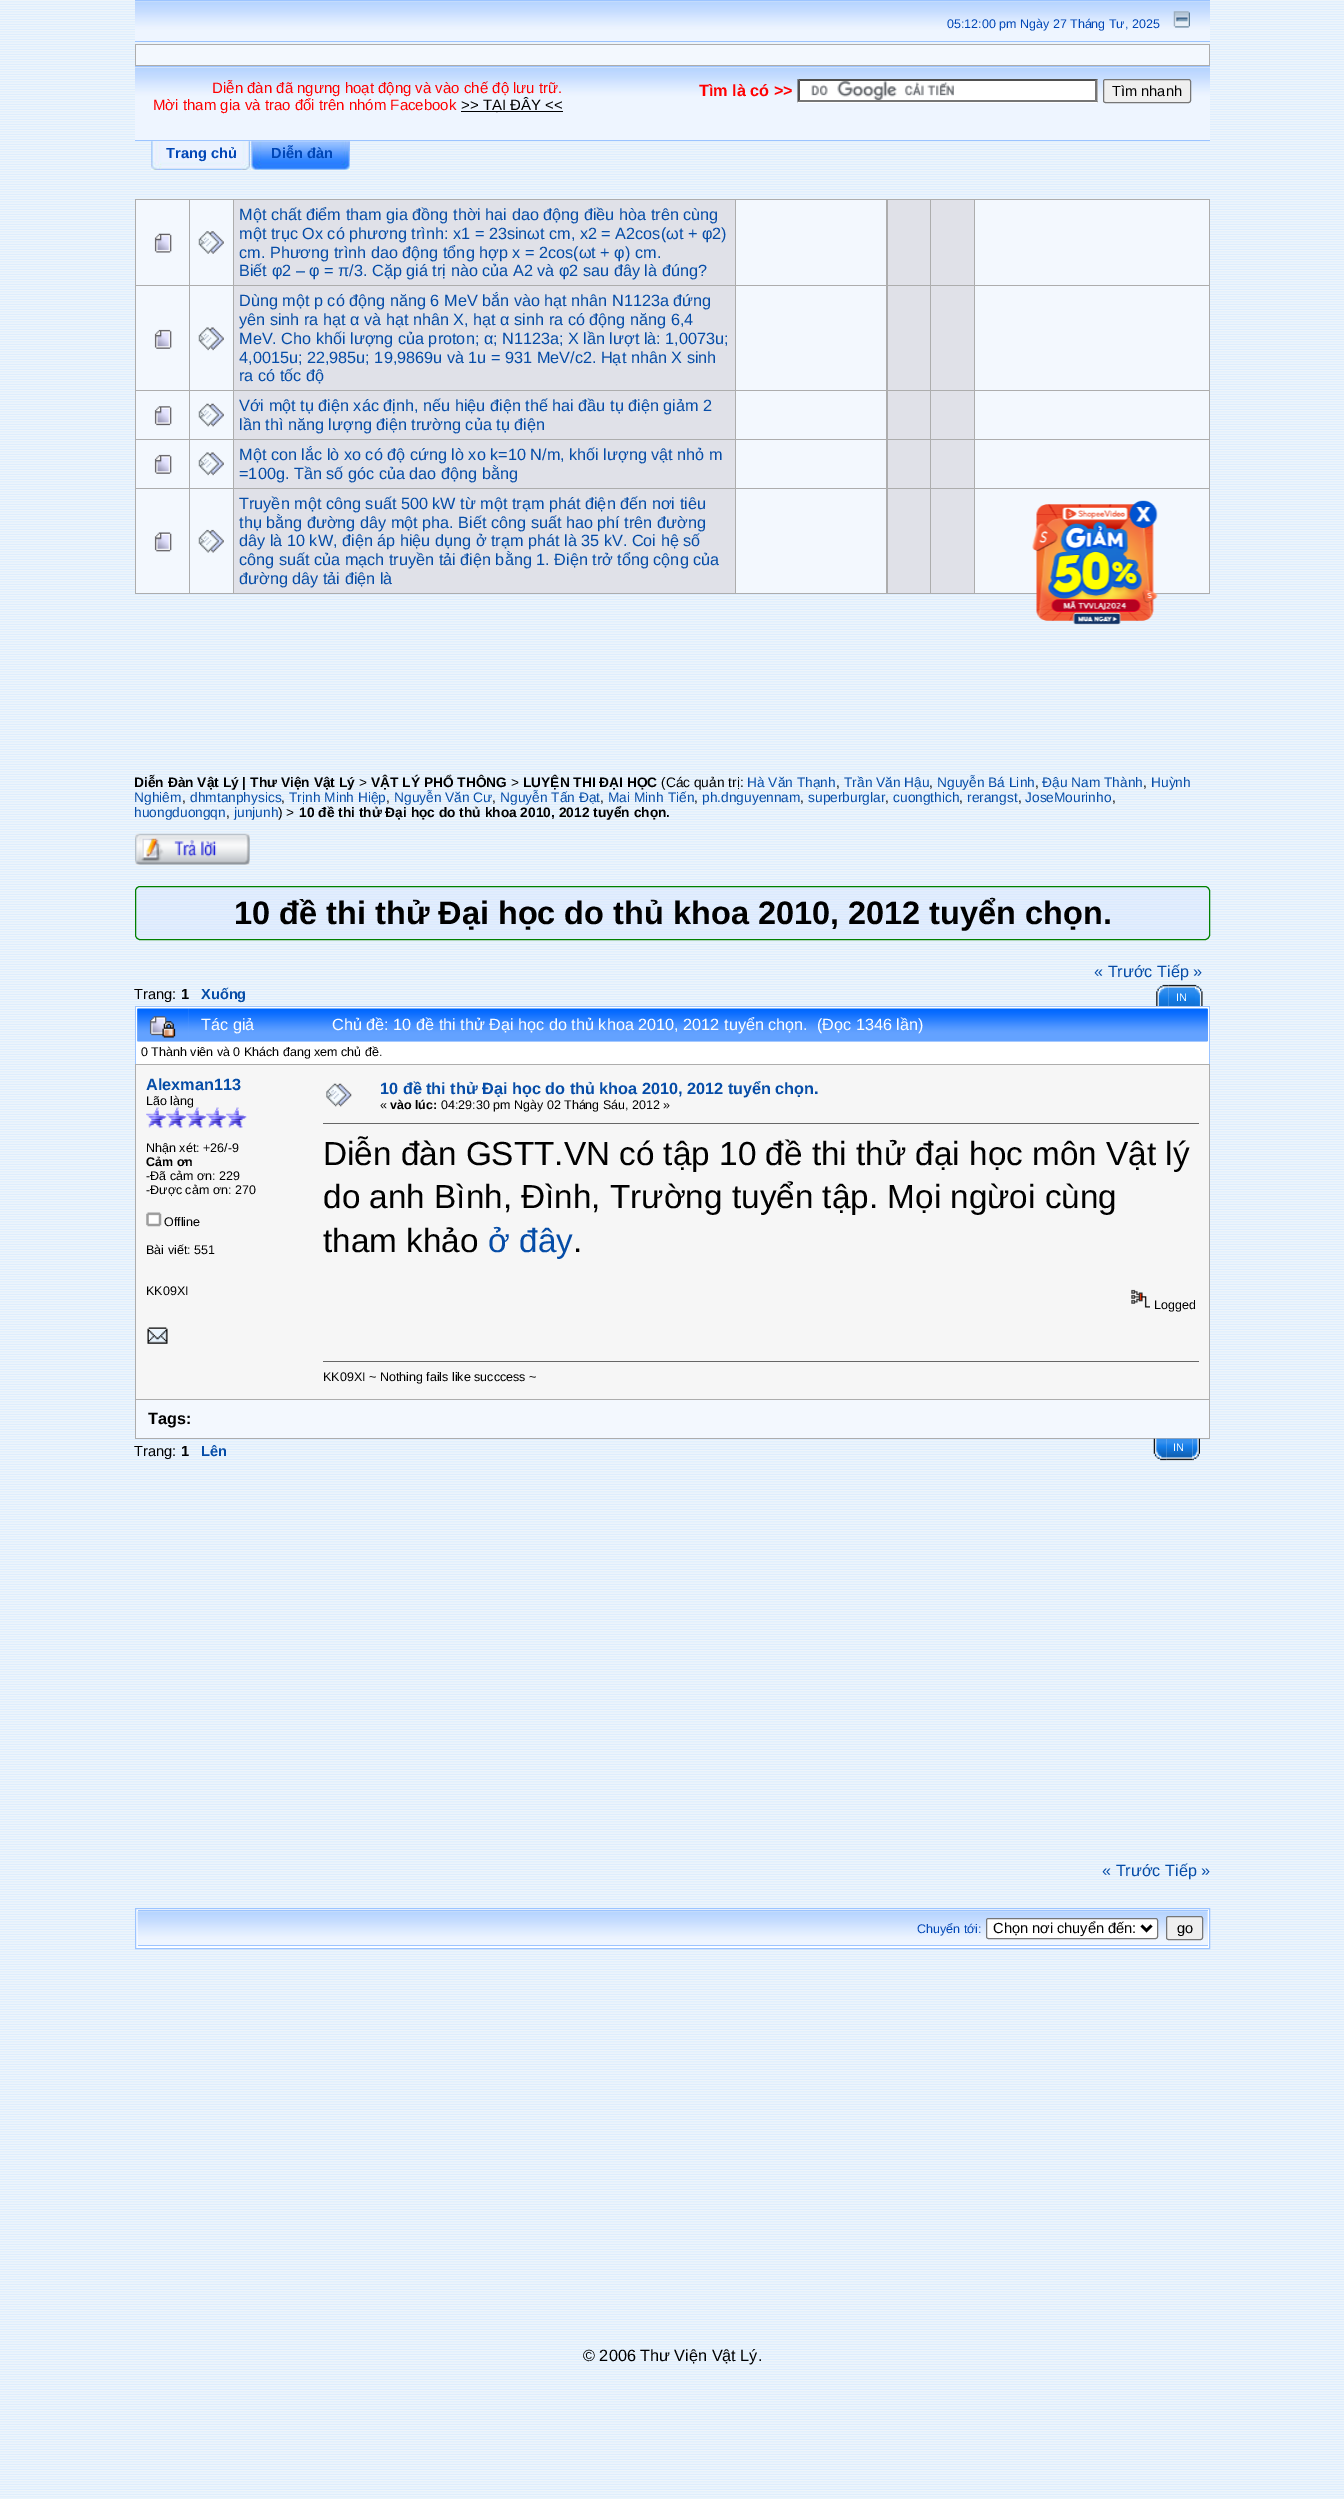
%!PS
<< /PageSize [1344 2499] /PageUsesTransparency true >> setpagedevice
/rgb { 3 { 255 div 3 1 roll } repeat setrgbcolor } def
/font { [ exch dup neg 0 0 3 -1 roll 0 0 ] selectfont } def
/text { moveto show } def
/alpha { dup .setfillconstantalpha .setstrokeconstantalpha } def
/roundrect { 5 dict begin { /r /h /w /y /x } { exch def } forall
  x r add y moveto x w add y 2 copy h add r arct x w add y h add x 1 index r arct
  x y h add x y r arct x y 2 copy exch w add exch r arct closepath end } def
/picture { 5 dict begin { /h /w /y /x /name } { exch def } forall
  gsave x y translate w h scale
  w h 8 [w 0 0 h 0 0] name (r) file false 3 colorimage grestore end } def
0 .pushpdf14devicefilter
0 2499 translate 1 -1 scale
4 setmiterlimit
255 255 255 rgb
0 0 1344 2499 rectfill
(img_01.rgb) 0 0 1344 2499 picture
233 240 246 rgb
135 1 1075 42 rectfill
(img_02.rgb) 135 1 1075 42 picture
156 196 255 rgb
135 0 1075 1 rectfill
135 41 1075 1 rectfill
(img_03.rgb) 1173 11 17 17 picture
173 173 173 rgb
135 44 1075 22 rectfill
243 248 254 rgb
136 45 1073 20 rectfill
233 240 246 rgb
135 67 1075 1 rectfill
(img_04.rgb) 135 67 1075 73 picture
156 196 255 rgb
135 66 1075 1 rectfill
135 140 1075 1 rectfill
0 0 0 rgb
461 111 102 1 rectfill
255 255 255 rgb
798 79 300 24 rectfill
(img_05.rgb) 811 81 143 19 picture
79 79 79 rgb
798 79 moveto 300 0 rlineto -3 2 rlineto -295 0 rlineto closepath fill
118 118 118 rgb
1097.5 79 moveto 0 23.5 rlineto -2.5 -2.5 rlineto 0 -19 rlineto closepath fill
1098 102 moveto -300 0 rlineto 2 -2 rlineto 295 0 rlineto closepath fill
79 79 79 rgb
797.5 102.5 moveto 0 -23.5 rlineto 2.5 2 rlineto 0 19 rlineto closepath fill
239 239 239 rgb
1103.5 79.5 87 23 2 roundrect gsave fill grestore
118 118 118 rgb
stroke
(img_06.rgb) 151 141 99 29 picture
(img_07.rgb) 251 141 99 29 picture
173 173 173 rgb
135 199 1075 395 rectfill
243 248 254 rgb
136 200 53 85 rectfill
(img_08.rgb) 154 233 18 20 picture
190 200 43 85 rectfill
(img_09.rgb) 198 231 26 23 picture
224 225 232 rgb
234 200 501 85 rectfill
243 248 254 rgb
736 200 150 85 rectfill
224 225 232 rgb
888 200 42 85 rectfill
931 200 43 85 rectfill
243 248 254 rgb
975 200 234 85 rectfill
136 286 53 104 rectfill
(img_10.rgb) 154 329 18 20 picture
190 286 43 104 rectfill
(img_11.rgb) 198 327 26 24 picture
224 225 232 rgb
234 286 501 104 rectfill
243 248 254 rgb
736 286 150 104 rectfill
224 225 232 rgb
888 286 42 104 rectfill
931 286 43 104 rectfill
243 248 254 rgb
975 286 234 104 rectfill
136 391 53 48 rectfill
(img_12.rgb) 154 406 18 20 picture
190 391 43 48 rectfill
(img_13.rgb) 198 403 26 24 picture
224 225 232 rgb
234 391 501 48 rectfill
243 248 254 rgb
736 391 150 48 rectfill
224 225 232 rgb
888 391 42 48 rectfill
931 391 43 48 rectfill
243 248 254 rgb
975 391 234 48 rectfill
136 440 53 48 rectfill
(img_10.rgb) 154 454 18 20 picture
190 440 43 48 rectfill
(img_11.rgb) 198 452 26 24 picture
224 225 232 rgb
234 440 501 48 rectfill
243 248 254 rgb
736 440 150 48 rectfill
224 225 232 rgb
888 440 42 48 rectfill
931 440 43 48 rectfill
243 248 254 rgb
975 440 234 48 rectfill
136 489 53 104 rectfill
(img_14.rgb) 154 532 18 20 picture
190 489 43 104 rectfill
(img_15.rgb) 198 529 26 24 picture
224 225 232 rgb
234 489 501 104 rectfill
243 248 254 rgb
736 489 150 104 rectfill
224 225 232 rgb
888 489 42 104 rectfill
931 489 43 104 rectfill
243 248 254 rgb
975 489 234 104 rectfill
(img_16.rgb) 1032 500 126 125 picture
(img_17.rgb) 135 833 115 32 picture
0.47 alpha
215 229 255 rgb
135.5 886.5 1074 53 4.5 roundrect fill
1 alpha
0 128 0 rgb
135.5 886.5 1074 53 4.5 roundrect stroke
(img_18.rgb) 1156 984 13 22 picture
(img_19.rgb) 1168 984 27 22 picture
(img_20.rgb) 1195 984 8 22 picture
255 255 255 rgb
136 1007 1073 57 rectfill
156 196 255 rgb
135 1006 1075 1 rectfill
1209 1006 1 58 rectfill
135 1006 1 58 rectfill
(img_21.rgb) 137 1008 52 34 picture
(img_22.rgb) 149 1016 27 22 picture
(img_23.rgb) 188 1008 137 34 picture
(img_24.rgb) 325 1008 883 34 picture
173 173 173 rgb
135 1064 1075 336 rectfill
246 246 246 rgb
136 1065 1073 334 rectfill
(img_28.rgb) 146 1212 16 15 picture
(img_29.rgb) 147 1327 21 17 picture
(img_30.rgb) 326 1083 26 24 picture
102 102 102 rgb
323 1123 876 1 rectfill
(img_31.rgb) 1131 1289 19 19 picture
323 1361 876 1 rectfill
243 248 254 rgb
136 1400 1073 38 rectfill
173 173 173 rgb
1209 1400 1 39 rectfill
135 1438 1075 1 rectfill
135 1400 1 39 rectfill
(img_32.rgb) 1153 1438 14 23 picture
(img_33.rgb) 1166 1438 27 23 picture
(img_34.rgb) 1192 1438 8 23 picture
255 255 255 rgb
135.5 1908.5 moveto 1074 0 rlineto 0 40 rlineto -1074 0 rlineto closepath gsave fill grestore
156 196 255 rgb
stroke
233 240 246 rgb
138 1911 1070 34 rectfill
(img_35.rgb) 137 1911 1071 36 picture
156 196 255 rgb
138 1910 1070 1 rectfill
138 1945 1070 1 rectfill
255 255 255 rgb
986.5 1918.5 171 20 2 roundrect gsave fill grestore
118 118 118 rgb
stroke
0 0 0 rgb
2.5 setlinewidth
1141.5 1925.5 moveto 5 5 rlineto 5 -5 rlineto stroke
239 239 239 rgb
1166.5 1916.5 36 23 2 roundrect gsave fill grestore
118 118 118 rgb
1 setlinewidth
stroke
/LiberationSans-Regular 12.5 font
0 70 181 rgb
(05:12:00 pm Ngày 27 Tháng Tư, 2025) 947 28 text
/LiberationSans-Regular 15 font
255 0 0 rgb
(Diễn đàn đã ngưng hoạt động và vào chế độ lưu trữ.) 212 93 text
(Mời tham gia và trao đổi trên nhóm Facebook) 153 110 text
0 0 0 rgb
(>> TẠI ĐÂY <<) 461 110 text
/LiberationSans-Bold 16.25 font
255 0 0 rgb
(Tìm là có >>) 699 96 text
/LiberationSans-Regular 14.6 font
0 0 0 rgb
(Tìm nhanh) 1112 96 text
/LiberationSans-Bold 14.6 font
0 70 181 rgb
(Trang chủ) 166 158 text
(Diễn đàn) 271 158 text
/LiberationSans-Regular 16.25 font
5 76 167 rgb
(Một chất điểm tham gia đồng thời hai dao động điều hòa trên cùng) 239 220 text
(một trục Ox có phương trình: x1 = 23sinωt cm, x2 = A2cos\(ωt + φ2\)) 239 239 text
(cm. Phương trình dao động tổng hợp x = 2cos\(ωt + φ\) cm.) 239 258 text
(Biết φ2 – φ = π/3. Cặp giá trị nào của A2 và φ2 sau đây là đúng?) 239 276 text
(Dùng một p có động năng 6 MeV bắn vào hạt nhân N1123a đứng) 239 306 text
(yên sinh ra hạt α và hạt nhân X, hạt α sinh ra có động năng 6,4) 239 325 text
(MeV. Cho khối lượng của proton; α; N1123a; X lần lượt là: 1,0073u;) 239 344 text
(4,0015u; 22,985u; 19,9869u và 1u = 931 MeV/c2. Hạt nhân X sinh) 239 363 text
(ra có tốc độ) 239 381 text
(Với một tụ điện xác định, nếu hiệu điện thế hai đầu tụ điện giảm 2) 239 411 text
(lần thì năng lượng điện trường của tụ điện) 239 430 text
(Một con lắc lò xo có độ cứng lò xo k=10 N/m, khối lượng vật nhỏ m) 239 460 text
(=100g. Tần số góc của dao động bằng) 239 479 text
(Truyền một công suất 500 kW từ một trạm phát điện đến nơi tiêu) 239 509 text
(thụ bằng đường dây một pha. Biết công suất hao phí trên đường) 239 528 text
(dây là 10 kW, điện áp hiệu dụng ở trạm phát là 35 kV. Coi hệ số) 239 546 text
(công suất của mạch truyền tải điện bằng 1. Điện trở tổng cộng của) 239 565 text
(đường dây tải điện là) 239 584 text
/LiberationSans-Bold 13.75 font
0 0 0 rgb
(Diễn Đàn Vật Lý | Thư Viện Vật Lý) 134 787 text
/LiberationSans-Regular 13.75 font
(>) 359 787 text
/LiberationSans-Bold 13.75 font
(VẬT LÝ PHỔ THÔNG) 371 787 text
/LiberationSans-Regular 13.75 font
(>) 511 787 text
/LiberationSans-Bold 13.75 font
(LUYỆN THI ĐẠI HỌC) 523 787 text
/LiberationSans-Regular 13.75 font
(\(Các quản trị:) 661 787 text
5 76 167 rgb
(Hà Văn Thạnh) 747 787 text
(Trần Văn Hậu) 844 787 text
(Nguyễn Bá Linh) 937 787 text
(Đậu Nam Thành) 1042 787 text
(Huỳnh) 1151 787 text
0 0 0 rgb
(,) 836 787 text
(,) 929 787 text
(,) 1035 787 text
(,) 1143 787 text
5 76 167 rgb
(Nghiêm) 134 802 text
0 0 0 rgb
(,) 182 802 text
5 76 167 rgb
(dhmtanphysics) 190 802 text
0 0 0 rgb
(,) 281 802 text
5 76 167 rgb
(Trịnh Minh Hiệp) 289 802 text
0 0 0 rgb
(,) 386 802 text
5 76 167 rgb
(Nguyễn Văn Cư) 394 802 text
0 0 0 rgb
(,) 492 802 text
5 76 167 rgb
(Nguyễn Tấn Đạt) 500 802 text
0 0 0 rgb
(,) 600 802 text
5 76 167 rgb
(Mai Minh Tiến) 608 802 text
0 0 0 rgb
(,) 694 802 text
5 76 167 rgb
(ph.dnguyennam) 702 802 text
0 0 0 rgb
(,) 800 802 text
5 76 167 rgb
(superburglar) 808 802 text
0 0 0 rgb
(,) 885 802 text
5 76 167 rgb
(cuongthich) 893 802 text
0 0 0 rgb
(,) 959 802 text
5 76 167 rgb
(rerangst) 967 802 text
0 0 0 rgb
(,) 1018 802 text
5 76 167 rgb
(JoseMourinho) 1025 802 text
0 0 0 rgb
(,) 1112 802 text
5 76 167 rgb
(huongduongqn) 134 817 text
0 0 0 rgb
(,) 226 817 text
5 76 167 rgb
(junjunh) 234 817 text
0 0 0 rgb
(\) >) 278 817 text
/LiberationSans-Bold 13.75 font
(10 đề thi thử Đại học do thủ khoa 2010, 2012 tuyển chọn.) 299 817 text
/LiberationSans-Bold 32.5 font
(10 đề thi thử Đại học do thủ khoa 2010, 2012 tuyển chọn.) 234 924 text
/LiberationSans-Regular 14.6 font
(Trang:) 134 999 text
/LiberationSans-Bold 14.6 font
(1) 181 999 text
5 76 167 rgb
(Xuống) 201 999 text
/LiberationSans-Regular 16.25 font
(« Trước Tiếp ») 1094 977 text
/LiberationSans-Regular 11 font
255 255 255 rgb
(IN) 1176 1001 text
/LiberationSans-Regular 16.25 font
(Tác giả) 201 1030 text
(Chủ đề: 10 đề thi thử Đại học do thủ khoa 2010, 2012 tuyển chọn.  \(Đọc 1346 lần\)) 332 1030 text
/LiberationSans-Regular 12.5 font
0 0 0 rgb
(0 Thành viên và 0 Khách đang xem chủ đề.) 141 1056 text
/LiberationSans-Bold 16.25 font
5 76 167 rgb
(Alexman113) 146 1090 text
/LiberationSans-Regular 12.5 font
0 0 0 rgb
(Lão làng) 146 1105 text
(img_25.rgb) 146 1107 21 21 picture
(img_26.rgb) 166 1107 21 21 picture
(img_27.rgb) 186 1107 21 21 picture
(img_26.rgb) 206 1107 21 21 picture
(img_26.rgb) 226 1107 21 21 picture
(Nhận xét: +26/-9) 146 1152 text
/LiberationSans-Bold 12.5 font
(Cảm ơn) 146 1166 text
/LiberationSans-Regular 12.5 font
(-Đã cảm ơn: 229) 146 1180 text
(-Được cảm ơn: 270) 146 1194 text
(Offline) 164 1226 text
(Bài viết: 551) 146 1254 text
(KK09XI) 146 1295 text
/LiberationSans-Bold 16.25 font
5 76 167 rgb
(10 đề thi thử Đại học do thủ khoa 2010, 2012 tuyển chọn.) 380 1094 text
/LiberationSans-Regular 12.5 font
0 0 0 rgb
(«) 380 1109 text
/LiberationSans-Bold 12.5 font
(vào lúc:) 390 1109 text
/LiberationSans-Regular 12.5 font
(04:29:30 pm Ngày 02 Tháng Sáu, 2012 ») 441 1109 text
/LiberationSans-Regular 33.3 font
(Diễn đàn GSTT.VN có tập 10 đề thi thử đại học môn Vật lý) 323 1165 text
(do anh Bình, Đình, Trường tuyển tập. Mọi ngừoi cùng) 323 1208 text
(tham khảo) 323 1252 text
5 76 167 rgb
(ở đây) 488 1252 text
0 0 0 rgb
(.) 573 1252 text
/LiberationSans-Regular 12.5 font
(Logged) 1154 1309 text
(KK09XI ~ Nothing fails like succcess ~) 323 1381 text
/LiberationSans-Bold 16.25 font
(Tags:) 148 1424 text
/LiberationSans-Regular 14.6 font
(Trang:) 134 1456 text
/LiberationSans-Bold 14.6 font
(1) 181 1456 text
5 76 167 rgb
(Lên) 201 1456 text
/LiberationSans-Regular 11 font
255 255 255 rgb
(IN) 1173 1451 text
/LiberationSans-Regular 16.25 font
5 76 167 rgb
(« Trước Tiếp ») 1102 1876 text
/LiberationSans-Regular 12.5 font
0 70 181 rgb
(Chuyển tới:) 917 1933 text
/LiberationSans-Regular 14.6 font
0 0 0 rgb
(Chọn nơi chuyển đến:) 993 1933 text
(go) 1177 1933 text
/LiberationSans-Regular 16.25 font
(© 2006 Thư Viện Vật Lý.) 583 2361 text
.poppdf14devicefilter showpage
